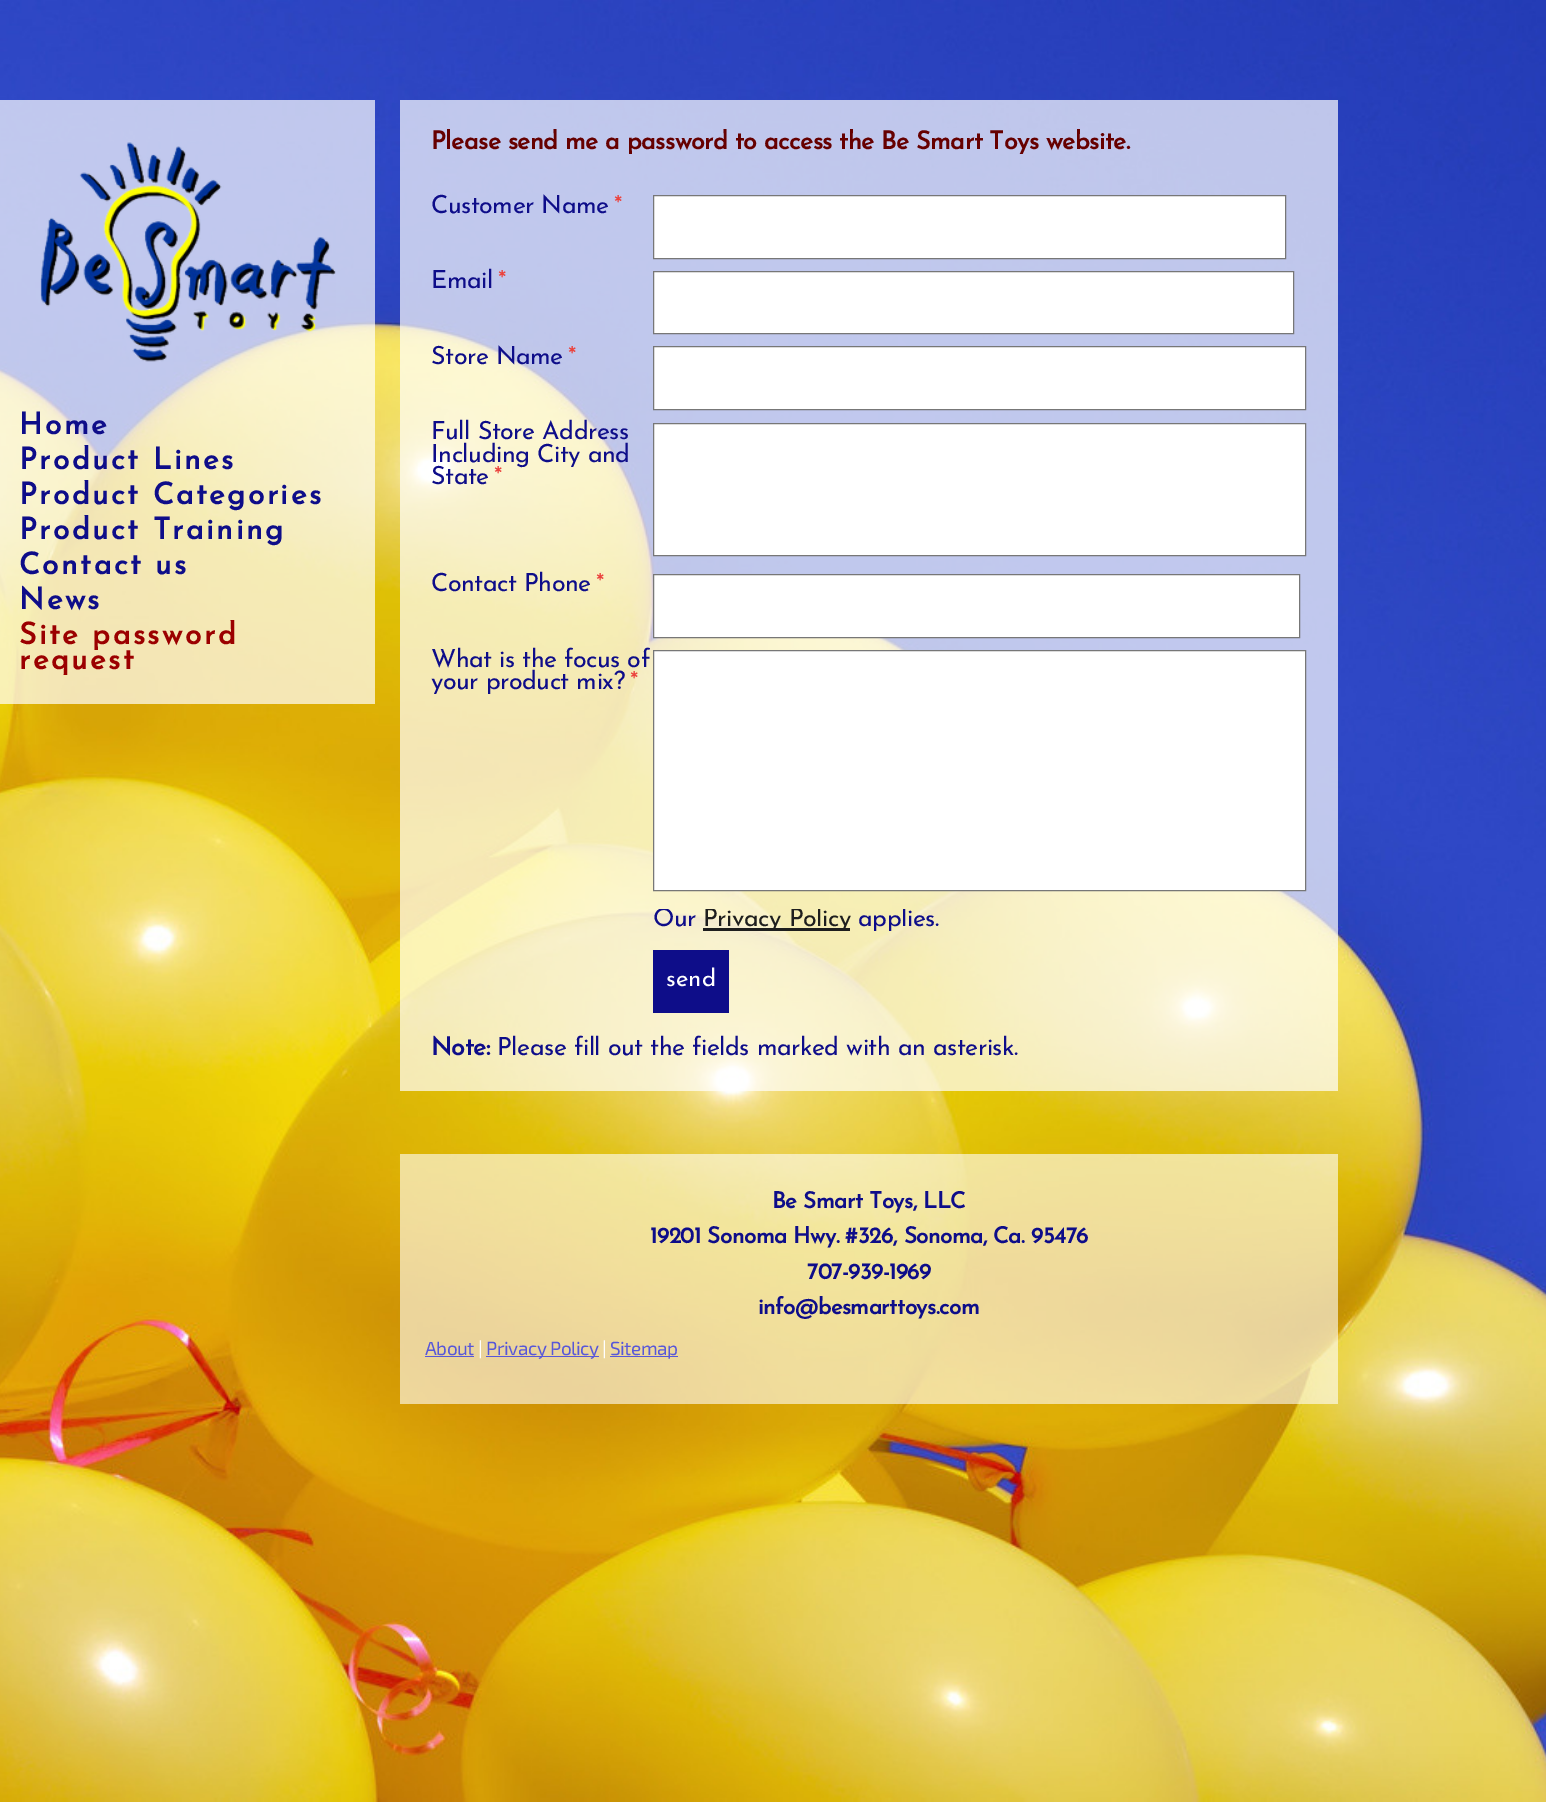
%!PS
<< /PageSize [1546 1802] /PageUsesTransparency true >> setpagedevice
/rgb { 3 { 255 div 3 1 roll } repeat setrgbcolor } def
/font { [ exch dup neg 0 0 3 -1 roll 0 0 ] selectfont } def
/text { moveto show } def
/alpha { dup .setfillconstantalpha .setstrokeconstantalpha } def
/picture { 5 dict begin { /h /w /y /x /name } { exch def } forall
  gsave x y translate w h scale
  w h 8 [w 0 0 h 0 0] name (r) file false 3 colorimage grestore end } def
0 .pushpdf14devicefilter
0 1802 translate 1 -1 scale
4 setmiterlimit
255 255 255 rgb
0 0 1546 1802 rectfill
(img_01.rgb) 0 0 1546 1802 picture
0.7 alpha
0 100 375 604 rectfill
1 alpha
(img_02.rgb) 40 142 296 220 picture
0.7 alpha
400 100 938 991 rectfill
1 alpha
653.5 195.5 moveto 632 0 rlineto 0 63 rlineto -632 0 rlineto closepath gsave fill grestore
119 119 119 rgb
stroke
255 255 255 rgb
653.5 271.5 moveto 640 0 rlineto 0 62 rlineto -640 0 rlineto closepath gsave fill grestore
119 119 119 rgb
stroke
255 255 255 rgb
653.5 346.5 moveto 652 0 rlineto 0 63 rlineto -652 0 rlineto closepath gsave fill grestore
119 119 119 rgb
stroke
255 255 255 rgb
653.5 423.5 moveto 652 0 rlineto 0 132 rlineto -652 0 rlineto closepath gsave fill grestore
119 119 119 rgb
stroke
255 255 255 rgb
653.5 574.5 moveto 646 0 rlineto 0 63 rlineto -646 0 rlineto closepath gsave fill grestore
119 119 119 rgb
stroke
255 255 255 rgb
653.5 650.5 moveto 652 0 rlineto 0 240 rlineto -652 0 rlineto closepath gsave fill grestore
119 119 119 rgb
stroke
30 30 30 rgb
703 928 147 3 rectfill
14 13 137 rgb
653 950 76 63 rectfill
0.6 alpha
255 255 255 rgb
400 1154 938 250 rectfill
1 alpha
88 87 216 rgb
425 1356 49 1 rectfill
486 1356 113 1 rectfill
610 1356 68 1 rectfill
/JosefinSans-Bold 30 font
14 13 137 rgb
19 434 moveto 2.5 0 (Home) ashow
19 469 moveto 2.5 0 (Product Lines) ashow
19 504 moveto 2.5 0 (Product Categories) ashow
19 539 moveto 2.5 0 (Product Training) ashow
19 574 moveto 2.5 0 (Contact us) ashow
19 609 moveto 2.5 0 (News) ashow
155 0 0 rgb
19 644 moveto 2.5 0 (Site password) ashow
19 669 moveto 2.5 0 (request) ashow
/JosefinSans-Bold 25 font
102 0 0 rgb
431 149 moveto -0.47 0 (Please send me a password to access the Be Smart Toys website.) ashow
/JosefinSans-Thin 25 font
14 13 137 rgb
431 213 moveto -0.47 0 (Customer Name) ashow
235 67 62 rgb
614 213 moveto -0.47 0 (*) ashow
14 13 137 rgb
431 288 moveto -0.47 0 (Email) ashow
235 67 62 rgb
498 288 moveto -0.47 0 (*) ashow
14 13 137 rgb
431 364 moveto -0.47 0 (Store Name) ashow
235 67 62 rgb
568 364 moveto -0.47 0 (*) ashow
14 13 137 rgb
431 439 moveto -0.47 0 (Full Store Address) ashow
431 462 moveto -0.47 0 (Including City and) ashow
431 484 moveto -0.47 0 (State) ashow
235 67 62 rgb
494 484 moveto -0.47 0 (*) ashow
14 13 137 rgb
431 591 moveto -0.47 0 (Contact Phone) ashow
235 67 62 rgb
596 591 moveto -0.47 0 (*) ashow
14 13 137 rgb
431 667 moveto -0.47 0 (What is the focus of) ashow
431 689 moveto -0.47 0 (your product mix?) ashow
235 67 62 rgb
630 689 moveto -0.47 0 (*) ashow
gsave
650 909 656 122 rectclip
14 13 137 rgb
653 926 moveto -0.47 0 (Our) ashow
30 30 30 rgb
703 926 moveto -0.47 0 (Privacy Policy) ashow
14 13 137 rgb
858 926 moveto -0.47 0 (applies.) ashow
grestore
/JosefinSans-Thin 24 font
255 255 255 rgb
(send) 666 986 text
/JosefinSans-Bold 25 font
14 13 137 rgb
431 1055 moveto -0.47 0 (Note:) ashow
/JosefinSans-Thin 25 font
497 1055 moveto -0.47 0 (Please fill out the fields marked with an asterisk.) ashow
/JosefinSans-Bold 22.5 font
772 1208 moveto -0.47 0 (Be Smart Toys, LLC) ashow
650 1243 moveto -0.47 0 (19201 Sonoma Hwy. #326, Sonoma, Ca. 95476) ashow
807 1279 moveto -0.47 0 (707-939-1969) ashow
758 1314 moveto -0.47 0 (info@besmarttoys.com) ashow
/Exo2-Regular 19 font
88 87 216 rgb
425 1355 moveto -0.47 0 (About) ashow
255 255 255 rgb
478 1355 moveto -0.47 0 (|) ashow
88 87 216 rgb
486 1355 moveto -0.47 0 (Privacy Policy) ashow
255 255 255 rgb
602 1355 moveto -0.47 0 (|) ashow
88 87 216 rgb
610 1355 moveto -0.47 0 (Sitemap) ashow
.poppdf14devicefilter showpage
